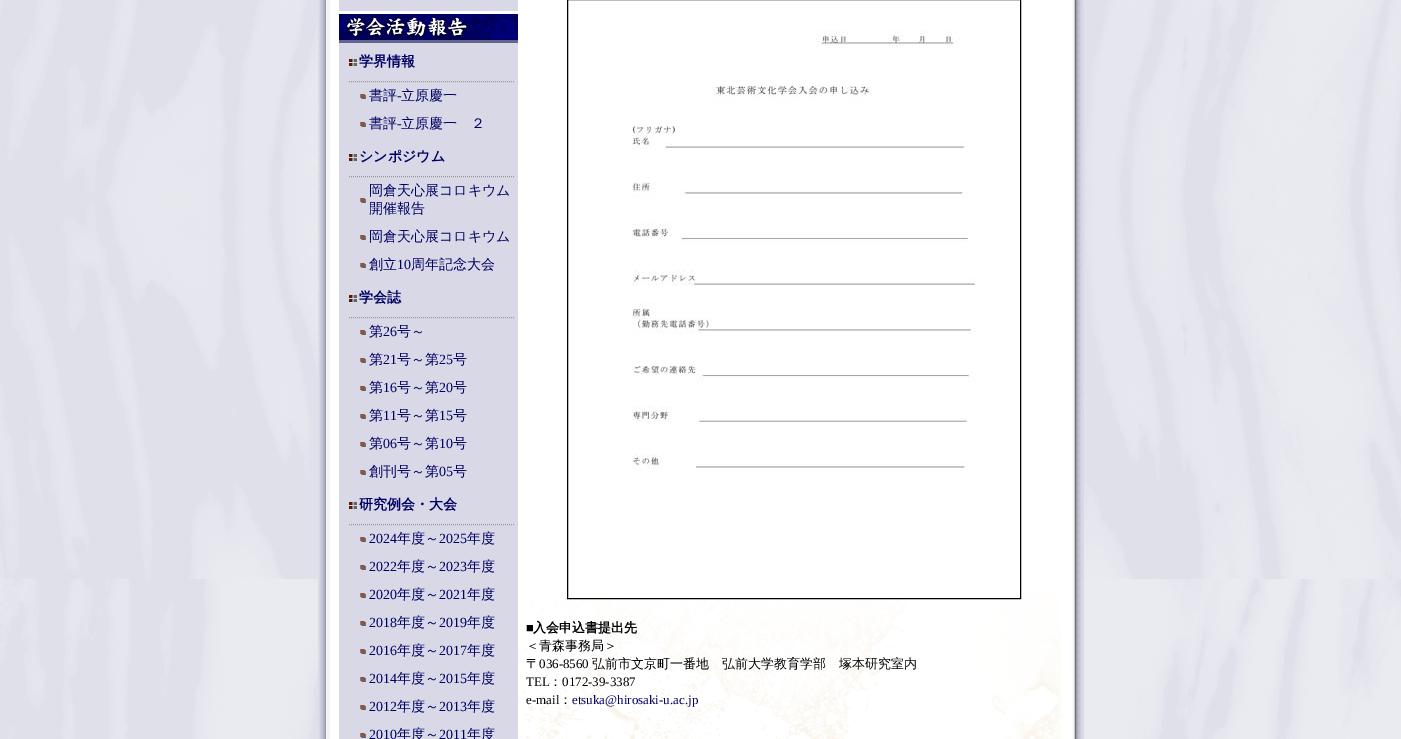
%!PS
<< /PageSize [1401 739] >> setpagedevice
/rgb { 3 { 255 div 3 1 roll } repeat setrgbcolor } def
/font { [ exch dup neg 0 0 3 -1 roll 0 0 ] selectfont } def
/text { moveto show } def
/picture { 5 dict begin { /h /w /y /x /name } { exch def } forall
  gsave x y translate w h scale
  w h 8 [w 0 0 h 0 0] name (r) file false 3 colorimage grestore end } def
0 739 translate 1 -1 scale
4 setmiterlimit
255 255 255 rgb
0 0 1401 739 rectfill
(img_01.rgb) 0 0 1401 739 picture
330 0 742 739 rectfill
(img_02.rgb) 318 0 8 739 picture
(img_03.rgb) 1076 0 8 739 picture
(img_04.rgb) 518 594 544 145 picture
244 244 244 rgb
326 0 4 739 rectfill
216 216 230 rgb
339 0 179 739 rectfill
(img_05.rgb) 339 11 179 32 picture
(img_06.rgb) 349 59 8 7 picture
153 153 153 rgb
[1 1] 0 setdash
349 81.5 moveto 165 0 rlineto stroke
(img_07.rgb) 360 94 6 5 picture
(img_07.rgb) 360 122 6 5 picture
(img_06.rgb) 349 154 8 7 picture
349 176.5 moveto 165 0 rlineto stroke
(img_07.rgb) 360 198 6 5 picture
(img_07.rgb) 360 235 6 5 picture
(img_07.rgb) 360 263 6 5 picture
(img_06.rgb) 349 295 8 7 picture
349 317.5 moveto 165 0 rlineto stroke
(img_07.rgb) 360 330 6 5 picture
(img_07.rgb) 360 358 6 5 picture
(img_07.rgb) 360 386 6 5 picture
(img_07.rgb) 360 414 6 5 picture
(img_07.rgb) 360 442 6 5 picture
(img_07.rgb) 360 470 6 5 picture
(img_06.rgb) 349 502 8 7 picture
349 524.5 moveto 165 0 rlineto stroke
(img_07.rgb) 360 537 6 5 picture
(img_07.rgb) 360 565 6 5 picture
(img_07.rgb) 360 593 6 5 picture
(img_07.rgb) 360 621 6 5 picture
(img_07.rgb) 360 649 6 5 picture
(img_07.rgb) 360 677 6 5 picture
(img_07.rgb) 360 705 6 5 picture
(img_07.rgb) 360 733 6 5 picture
0 0 0 rgb
[] 0 setdash
567.5 -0.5 453 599 rectstroke
(img_08.rgb) 632 30 344 568 picture
(img_09.rgb) 1072 0 4 739 picture
/WenQuanYiZenHei-Bold 14 font
0 0 100 rgb
(学界情報) 359 66 text
/WenQuanYiZenHei-Medium 14 font
(書評) 369 100 text
/LiberationSerif-Regular 14 font
(-) 397 100 text
/WenQuanYiZenHei-Medium 14 font
(立原慶一) 401 100 text
(書評) 369 128 text
/LiberationSerif-Regular 14 font
(-) 397 128 text
/WenQuanYiZenHei-Medium 14 font
(立原慶一　２) 401 128 text
/WenQuanYiZenHei-Bold 14 font
(シンポジウム) 359 161 text
/WenQuanYiZenHei-Medium 14 font
(岡倉天心展コロキウム) 369 195 text
(開催報告) 369 213 text
(岡倉天心展コロキウム) 369 241 text
(創立) 369 269 text
/LiberationSerif-Regular 14 font
(10) 397 269 text
/WenQuanYiZenHei-Medium 14 font
(周年記念大会) 411 269 text
/WenQuanYiZenHei-Bold 14 font
(学会誌) 359 302 text
/WenQuanYiZenHei-Medium 14 font
(第) 369 336 text
/LiberationSerif-Regular 14 font
(26) 383 336 text
/WenQuanYiZenHei-Medium 14 font
(号～) 397 336 text
(第) 369 364 text
/LiberationSerif-Regular 14 font
(21) 383 364 text
/WenQuanYiZenHei-Medium 14 font
(号～第) 397 364 text
/LiberationSerif-Regular 14 font
(25) 439 364 text
/WenQuanYiZenHei-Medium 14 font
(号) 453 364 text
(第) 369 392 text
/LiberationSerif-Regular 14 font
(16) 383 392 text
/WenQuanYiZenHei-Medium 14 font
(号～第) 397 392 text
/LiberationSerif-Regular 14 font
(20) 439 392 text
/WenQuanYiZenHei-Medium 14 font
(号) 453 392 text
(第) 369 420 text
/LiberationSerif-Regular 14 font
(11) 383 420 text
/WenQuanYiZenHei-Medium 14 font
(号～第) 397 420 text
/LiberationSerif-Regular 14 font
(15) 439 420 text
/WenQuanYiZenHei-Medium 14 font
(号) 453 420 text
(第) 369 448 text
/LiberationSerif-Regular 14 font
(06) 383 448 text
/WenQuanYiZenHei-Medium 14 font
(号～第) 397 448 text
/LiberationSerif-Regular 14 font
(10) 439 448 text
/WenQuanYiZenHei-Medium 14 font
(号) 453 448 text
(創刊号～第) 369 476 text
/LiberationSerif-Regular 14 font
(05) 439 476 text
/WenQuanYiZenHei-Medium 14 font
(号) 453 476 text
/WenQuanYiZenHei-Bold 14 font
(研究例会・大会) 359 509 text
/LiberationSerif-Regular 14 font
(2024) 369 543 text
/WenQuanYiZenHei-Medium 14 font
(年度～) 397 543 text
/LiberationSerif-Regular 14 font
(2025) 439 543 text
/WenQuanYiZenHei-Medium 14 font
(年度) 467 543 text
/LiberationSerif-Regular 14 font
(2022) 369 571 text
/WenQuanYiZenHei-Medium 14 font
(年度～) 397 571 text
/LiberationSerif-Regular 14 font
(2023) 439 571 text
/WenQuanYiZenHei-Medium 14 font
(年度) 467 571 text
/LiberationSerif-Regular 14 font
(2020) 369 599 text
/WenQuanYiZenHei-Medium 14 font
(年度～) 397 599 text
/LiberationSerif-Regular 14 font
(2021) 439 599 text
/WenQuanYiZenHei-Medium 14 font
(年度) 467 599 text
/LiberationSerif-Regular 14 font
(2018) 369 627 text
/WenQuanYiZenHei-Medium 14 font
(年度～) 397 627 text
/LiberationSerif-Regular 14 font
(2019) 439 627 text
/WenQuanYiZenHei-Medium 14 font
(年度) 467 627 text
/LiberationSerif-Regular 14 font
(2016) 369 655 text
/WenQuanYiZenHei-Medium 14 font
(年度～) 397 655 text
/LiberationSerif-Regular 14 font
(2017) 439 655 text
/WenQuanYiZenHei-Medium 14 font
(年度) 467 655 text
/LiberationSerif-Regular 14 font
(2014) 369 683 text
/WenQuanYiZenHei-Medium 14 font
(年度～) 397 683 text
/LiberationSerif-Regular 14 font
(2015) 439 683 text
/WenQuanYiZenHei-Medium 14 font
(年度) 467 683 text
/LiberationSerif-Regular 14 font
(2012) 369 711 text
/WenQuanYiZenHei-Medium 14 font
(年度～) 397 711 text
/LiberationSerif-Regular 14 font
(2013) 439 711 text
/WenQuanYiZenHei-Medium 14 font
(年度) 467 711 text
/LiberationSerif-Regular 14 font
(2010) 369 739 text
/WenQuanYiZenHei-Medium 14 font
(年度～) 397 739 text
/LiberationSerif-Regular 14 font
(2011) 439 739 text
/WenQuanYiZenHei-Medium 14 font
(年度) 467 739 text
/LiberationSerif-Bold 13 font
0 0 0 rgb
(■) 526 632 text
/WenQuanYiZenHei-Bold 13 font
(入会申込書提出先) 533 632 text
/WenQuanYiZenHei-Medium 13 font
(＜青森事務局＞) 526 650 text
(〒) 526 668 text
/LiberationSerif-Regular 13 font
(036-8560) 539 668 text
/WenQuanYiZenHei-Medium 13 font
(弘前市文京町一番地　弘前大学教育学部　塚本研究室内) 592 668 text
/LiberationSerif-Regular 13 font
(TEL) 526 686 text
/WenQuanYiZenHei-Medium 13 font
(：) 549 686 text
/LiberationSerif-Regular 13 font
(0172-39-3387) 562 686 text
(e-mail) 526 704 text
/WenQuanYiZenHei-Medium 13 font
(：) 559 704 text
/LiberationSerif-Regular 13 font
0 0 100 rgb
(etsuka@hirosaki-u.ac.jp) 572 704 text
showpage
